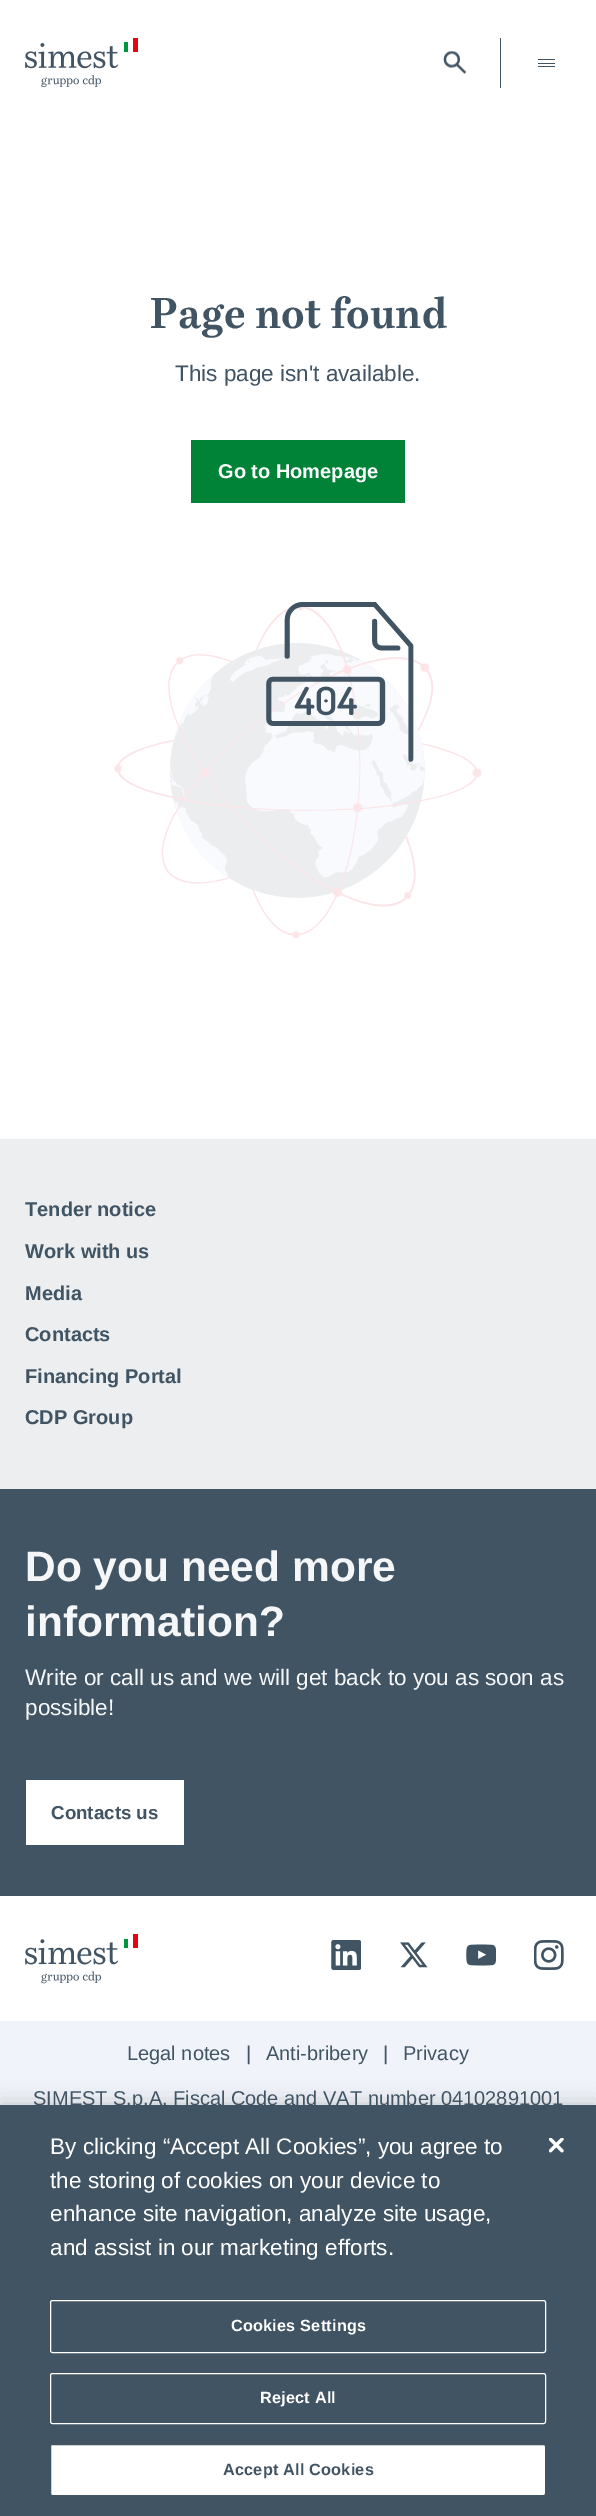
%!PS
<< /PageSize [596 2516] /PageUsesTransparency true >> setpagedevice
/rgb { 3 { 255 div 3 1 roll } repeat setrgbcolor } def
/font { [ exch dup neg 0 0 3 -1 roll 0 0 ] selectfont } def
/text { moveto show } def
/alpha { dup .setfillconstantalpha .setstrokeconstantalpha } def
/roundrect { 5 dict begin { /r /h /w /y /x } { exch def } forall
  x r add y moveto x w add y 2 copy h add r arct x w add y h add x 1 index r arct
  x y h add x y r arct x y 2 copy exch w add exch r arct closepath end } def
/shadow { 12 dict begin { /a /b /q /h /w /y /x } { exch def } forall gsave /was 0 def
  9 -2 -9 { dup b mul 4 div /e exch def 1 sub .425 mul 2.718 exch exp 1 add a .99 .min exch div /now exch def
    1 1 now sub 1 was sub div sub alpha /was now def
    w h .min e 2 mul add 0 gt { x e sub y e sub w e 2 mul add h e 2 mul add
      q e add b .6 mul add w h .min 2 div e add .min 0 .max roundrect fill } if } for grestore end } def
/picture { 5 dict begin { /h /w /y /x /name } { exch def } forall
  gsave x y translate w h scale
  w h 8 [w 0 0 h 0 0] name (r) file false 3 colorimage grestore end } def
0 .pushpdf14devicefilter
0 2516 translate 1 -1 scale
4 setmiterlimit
255 255 255 rgb
0 0 596 2516 rectfill
(img_01.rgb) 25 38 113 50 picture
(img_02.rgb) 443 50 24 25 picture
64 84 100 rgb
500 38 1 50 rectfill
538 59 17 1 rectfill
538 63 17 1 rectfill
538 66 17 1 rectfill
0 131 55 rgb
191 440 214 63 rectfill
(img_03.rgb) 114 602 368 336 picture
236 238 239 rgb
0 1139 596 350 rectfill
64 84 100 rgb
0 1489 596 407 rectfill
255 255 255 rgb
26 1780 158 65 rectfill
(img_04.rgb) 25 1934 113 50 picture
(img_05.rgb) 331 1940 30 30 picture
(img_06.rgb) 400 1942 28 26 picture
(img_07.rgb) 466 1944 30 22 picture
(img_08.rgb) 534 1940 30 30 picture
240 244 250 rgb
0 2021 596 84 rectfill
0 0 0 rgb
0 2105 596 411 0 11 0.2 shadow
64 84 100 rgb
0 2105 596 411 rectfill
255 255 255 rgb
50.5 2300.5 495 52 2 roundrect stroke
50.5 2373.5 495 50 2 roundrect stroke
50.5 2444.5 495 51 2 roundrect gsave fill grestore
64 84 100 rgb
stroke
(img_09.rgb) 549 2138 15 15 picture
/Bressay-Bold 42.5 font
(Page not found) 149 328 text
/LiberationSans-Regular 22.5 font
(This page isn't available.) 175 381 text
/LiberationSans-Bold 20 font
255 255 255 rgb
(Go to Homepage) 218 478 text
64 84 100 rgb
(Tender notice) 25 1216 text
(Work with us) 25 1258 text
(Media) 25 1300 text
(Contacts) 25 1341 text
(Financing Portal) 25 1383 text
(CDP Group) 25 1424 text
/LiberationSans-Bold 42.5 font
245 246 247 rgb
(Do you need more) 25 1581 text
(information?) 25 1636 text
/LiberationSans-Regular 22.5 font
(Write or call us and we will get back to you as soon as) 25 1685 text
(possible!) 25 1715 text
/LiberationSans-Bold 18.75 font
64 84 100 rgb
(Contacts us) 51 1819 text
/LiberationSans-Regular 20 font
(Legal notes) 127 2060 text
(|) 246 2060 text
(Anti-bribery) 266 2060 text
(|) 383 2060 text
(Privacy) 403 2060 text
(SIMEST S.p.A. Fiscal Code and VAT number 04102891001) 33 2105 text
/LiberationSans-Regular 22.5 font
255 255 255 rgb
(By clicking “Accept All Cookies”, you agree to) 50 2154 text
(the storing of cookies on your device to) 50 2188 text
(enhance site navigation, analyze site usage,) 50 2221 text
(and assist in our marketing efforts.) 50 2255 text
/LiberationSans-Bold 16.25 font
231 2331 moveto 0.2 0 (Cookies Settings) ashow
260 2403 moveto 0.2 0 (Reject All) ashow
64 84 100 rgb
223 2475 moveto 0.2 0 (Accept All Cookies) ashow
.poppdf14devicefilter showpage
